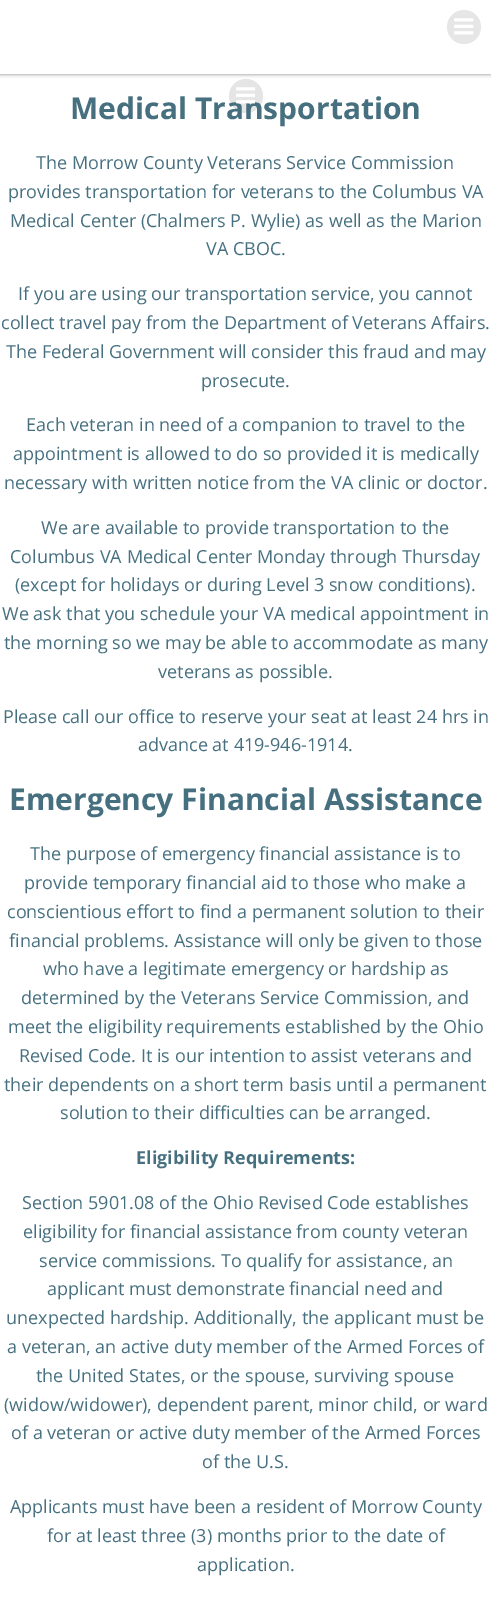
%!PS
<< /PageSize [491 1602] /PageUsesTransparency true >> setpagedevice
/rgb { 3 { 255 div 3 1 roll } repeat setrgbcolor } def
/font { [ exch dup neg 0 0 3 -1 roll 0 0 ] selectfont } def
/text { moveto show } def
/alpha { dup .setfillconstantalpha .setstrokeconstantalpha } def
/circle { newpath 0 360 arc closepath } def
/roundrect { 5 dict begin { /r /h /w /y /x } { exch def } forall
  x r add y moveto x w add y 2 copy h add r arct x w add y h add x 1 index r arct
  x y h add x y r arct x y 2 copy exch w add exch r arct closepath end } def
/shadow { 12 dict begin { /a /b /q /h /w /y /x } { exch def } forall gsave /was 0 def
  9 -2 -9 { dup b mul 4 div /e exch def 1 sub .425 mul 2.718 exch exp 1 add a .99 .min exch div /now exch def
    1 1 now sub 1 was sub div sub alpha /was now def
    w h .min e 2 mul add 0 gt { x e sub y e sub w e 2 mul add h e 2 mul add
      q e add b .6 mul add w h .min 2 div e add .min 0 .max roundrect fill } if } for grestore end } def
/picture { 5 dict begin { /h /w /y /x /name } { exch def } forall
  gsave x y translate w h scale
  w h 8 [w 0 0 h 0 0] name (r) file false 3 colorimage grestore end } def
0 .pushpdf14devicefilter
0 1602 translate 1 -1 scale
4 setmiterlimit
255 255 255 rgb
0 0 491 1602 rectfill
0.1 alpha
0 0 0 rgb
246 96 17 circle fill
1 alpha
0 0 491 74 0 2 0.5 shadow
255 255 255 rgb
0 0 491 74 rectfill
230 230 230 rgb
464 27 17 circle fill
(img_01.rgb) 454 18 20 17 picture
/OpenSans-Bold 30 font
70 112 127 rgb
(Medical Transportation) 70 119 text
(img_02.rgb) 236 87 19 17 picture
/OpenSans-Regular 18 font
(The Morrow County Veterans Service Commission) 36 169 text
(provides transportation for veterans to the Columbus VA) 8 198 text
(Medical Center \(Chalmers P. Wylie\) as well as the Marion) 10 227 text
(VA CBOC.) 206 255 text
(If you are using our transportation service, you cannot) 18 300 text
(collect travel pay from the Department of Veterans Affairs.) 1 329 text
(The Federal Government will consider this fraud and may) 6 358 text
(prosecute.) 201 387 text
(Each veteran in need of a companion to travel to the) 26 431 text
(appointment is allowed to do so provided it is medically) 13 460 text
(necessary with written notice from the VA clinic or doctor.) 4 489 text
(We are available to provide transportation to the) 41 534 text
(Columbus VA Medical Center Monday through Thursday) 10 563 text
(\(except for holidays or during Level 3 snow conditions\).) 15 591 text
(We ask that you schedule your VA medical appointment in) 2 620 text
(the morning so we may be able to accommodate as many) 4 649 text
(veterans as possible.) 158 678 text
(Please call our office to reserve your seat at least 24 hrs in) 3 723 text
(advance at 419-946-1914.) 138 751 text
/OpenSans-Bold 30 font
(Emergency Financial Assistance) 9 810 text
/OpenSans-Regular 18 font
(The purpose of emergency financial assistance is to) 30 860 text
(provide temporary financial aid to those who make a) 24 889 text
(conscientious effort to find a permanent solution to their) 7 918 text
(financial problems. Assistance will only be given to those) 9 947 text
(who have a legitimate emergency or hardship as) 43 975 text
(determined by the Veterans Service Commission, and) 21 1004 text
(meet the eligibility requirements established by the Ohio) 8 1033 text
(Revised Code. It is our intention to assist veterans and) 19 1062 text
(their dependents on a short term basis until a permanent) 4 1091 text
(solution to their difficulties can be arranged.) 60 1119 text
/OpenSans-Bold 18 font
(Eligibility Requirements:) 136 1164 text
/OpenSans-Regular 18 font
(Section 5901.08 of the Ohio Revised Code establishes) 22 1209 text
(eligibility for financial assistance from county veteran) 23 1238 text
(service commissions. To qualify for assistance, an) 39 1267 text
(applicant must demonstrate financial need and) 47 1295 text
(unexpected hardship. Additionally, the applicant must be) 6 1324 text
(a veteran, an active duty member of the Armed Forces of) 7 1353 text
(the United States, or the spouse, surviving spouse) 36 1382 text
(\(widow/widower\), dependent parent, minor child, or ward) 4 1411 text
(of a veteran or active duty member of the Armed Forces) 11 1439 text
(of the U.S.) 202 1468 text
(Applicants must have been a resident of Morrow County) 10 1513 text
(for at least three \(3\) months prior to the date of) 47 1542 text
(application.) 197 1571 text
.poppdf14devicefilter showpage
